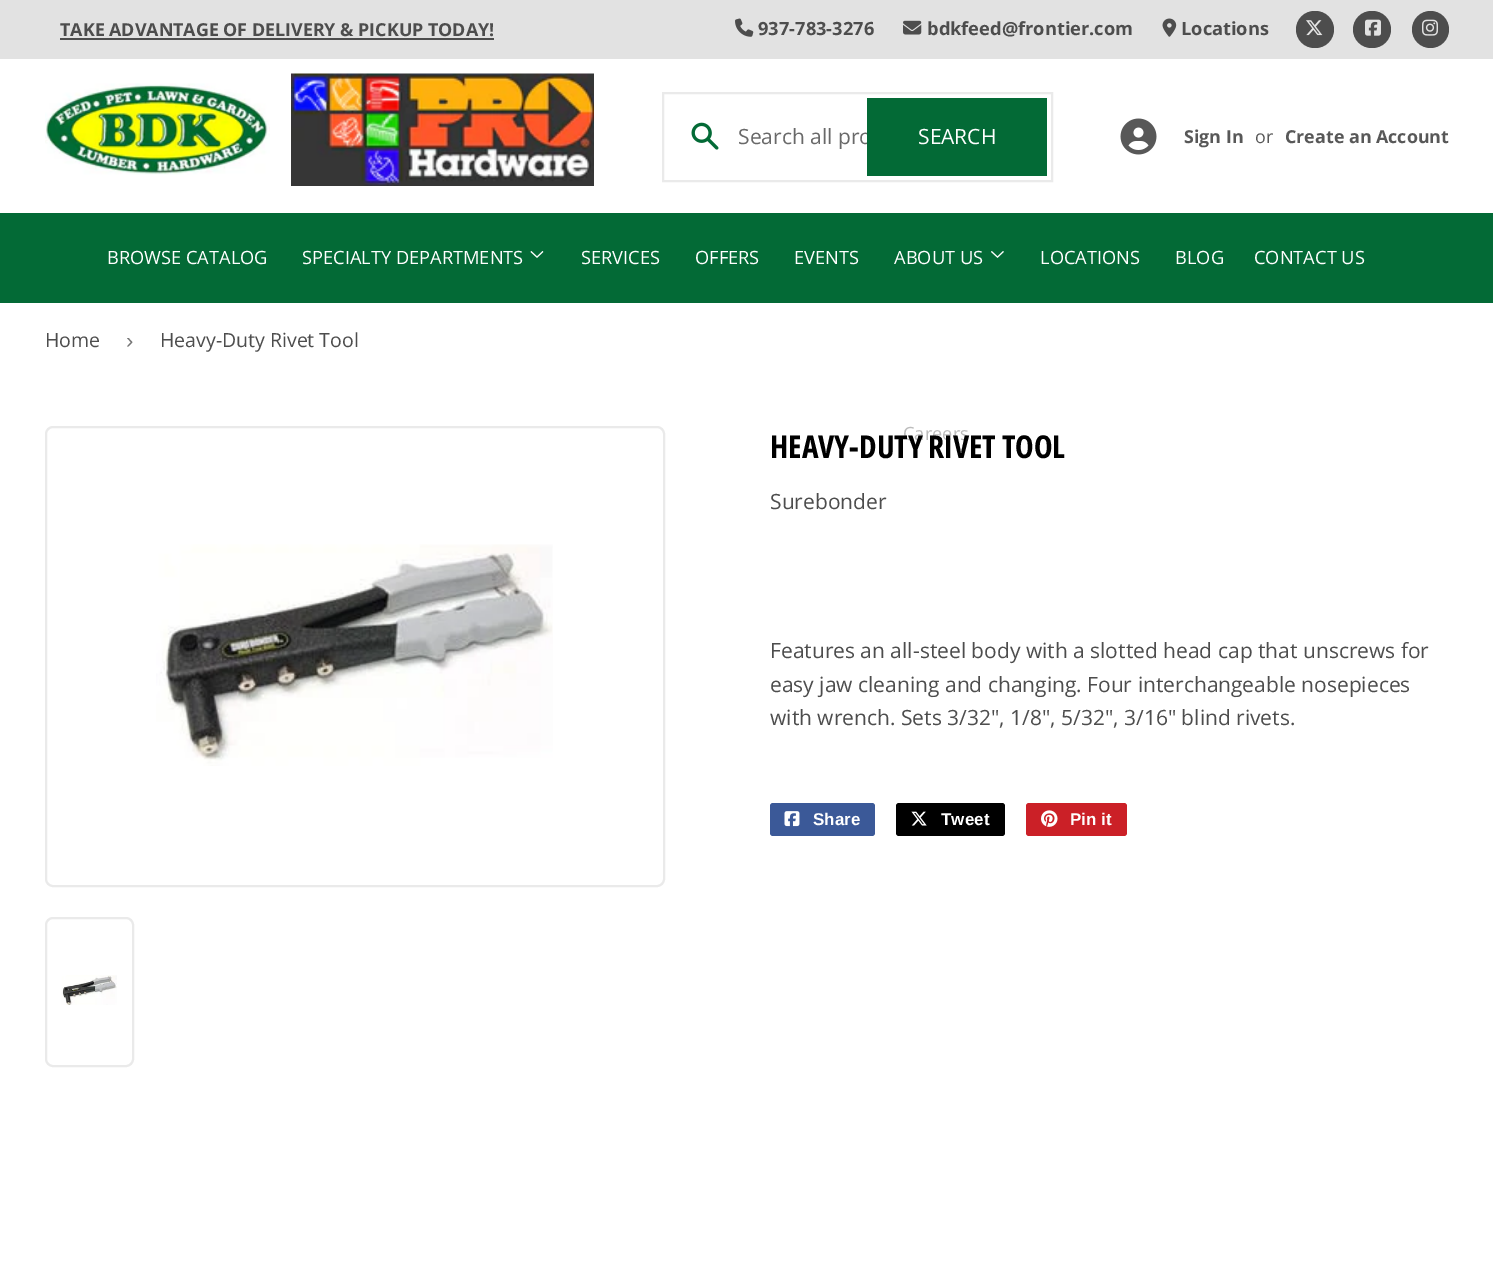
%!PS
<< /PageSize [1493 1267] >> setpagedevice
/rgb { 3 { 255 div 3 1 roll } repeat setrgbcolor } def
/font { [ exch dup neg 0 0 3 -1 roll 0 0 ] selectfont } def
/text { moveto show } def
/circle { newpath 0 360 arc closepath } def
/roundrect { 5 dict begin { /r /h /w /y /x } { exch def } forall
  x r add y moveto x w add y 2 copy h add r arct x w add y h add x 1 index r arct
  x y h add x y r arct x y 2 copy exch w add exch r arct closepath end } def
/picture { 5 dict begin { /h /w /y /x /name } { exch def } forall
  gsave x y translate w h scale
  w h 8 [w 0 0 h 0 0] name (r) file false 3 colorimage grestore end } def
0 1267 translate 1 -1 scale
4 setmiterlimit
255 255 255 rgb
0 0 1493 1267 rectfill
226 226 226 rgb
0 0 1493 59 rectfill
77 77 77 rgb
60 38 434 2 rectfill
(img_01.rgb) 735 18 19 19 picture
(img_02.rgb) 903 20 19 15 picture
(img_03.rgb) 1162 18 15 19 picture
1296 11 38 37 18.5 roundrect fill
(img_04.rgb) 1306 20 17 16 picture
1353 11 38 37 18.5 roundrect fill
(img_05.rgb) 1365 19 16 17 picture
1430.5 29.5 18.5 circle fill
(img_06.rgb) 1422 19 16 17 picture
(img_07.rgb) 45 83 225 92 picture
(img_08.rgb) 291 73 303 113 picture
234 234 234 rgb
2 setlinewidth
663 93 389 88 rectstroke
(img_09.rgb) 691 122 28 28 picture
(img_10.rgb) 1120 118 37 37 picture
3 106 54 rgb
0 213 1493 90 rectfill
(img_11.rgb) 530 251 14 7 picture
(img_12.rgb) 991 251 13 7 picture
234 234 234 rgb
46 427 618 459 7 roundrect stroke
(img_13.rgb) 156 544 397 222 picture
46 918 87 148 7 roundrect stroke
(img_14.rgb) 61 975 56 30 picture
59 89 152 rgb
770 803 105 33 3 roundrect fill
(img_15.rgb) 784 811 16 16 picture
0 0 0 rgb
896 803 109 33 3 roundrect fill
(img_16.rgb) 911 811 16 15 picture
203 32 39 rgb
1026 803 101 33 3 roundrect fill
(img_17.rgb) 1041 810 17 17 picture
/OpenSans-Bold 17.85 font
77 77 77 rgb
(TAKE ADVANTAGE OF DELIVERY & PICKUP TODAY!) 60 36 text
/OpenSans-Bold 18.25 font
(937-783-3276) 758 35 text
(bdkfeed@frontier.com) 927 35 text
(Locations) 1181 35 text
/OpenSans-Regular 21 font
105 105 105 rgb
(Search all pro) 738 144 text
3 106 54 rgb
867 98 180 78 rectfill
255 255 255 rgb
(SEARCH) 918 144 text
/OpenSans-Bold 17.85 font
88 88 88 rgb
(Sign In) 1184 143 text
/OpenSans-Regular 17.85 font
(or) 1255 143 text
/OpenSans-Bold 17.85 font
(Create an Account) 1285 143 text
/OpenSans-Regular 18.25 font
255 255 255 rgb
(BROWSE CATALOG) 107 264 text
(SPECIALTY DEPARTMENTS) 302 264 text
(SERVICES) 581 264 text
(OFFERS) 695 264 text
(EVENTS) 794 264 text
(ABOUT US) 894 264 text
188 188 188 rgb
(Careers) 903 440 text
255 255 255 rgb
(LOCATIONS) 1040 264 text
(BLOG) 1175 264 text
(CONTACT US) 1254 264 text
/OpenSans-Regular 19.5 font
77 77 77 rgb
(Home) 45 347 text
/LiberationSans-Regular 22 font
118 118 118 rgb
(›) 126 348 text
/OpenSans-Regular 19.5 font
77 77 77 rgb
(Heavy-Duty Rivet Tool) 160 347 text
/OpenSansCondensed-Bold 31.5 font
0 0 0 rgb
(HEAVY-DUTY RIVET TOOL) 770 458 text
/OpenSans-Regular 21 font
77 77 77 rgb
(Surebonder) 770 509 text
(Features an all-steel body with a slotted head cap that unscrews for) 770 658 text
(easy jaw cleaning and changing. Four interchangeable nosepieces) 770 692 text
(with wrench. Sets 3/32", 1/8", 5/32", 3/16" blind rivets.) 770 725 text
/LiberationSans-Bold 17 font
255 255 255 rgb
(Share) 813 825 text
(Tweet) 941 825 text
(Pin it) 1070 825 text
showpage
